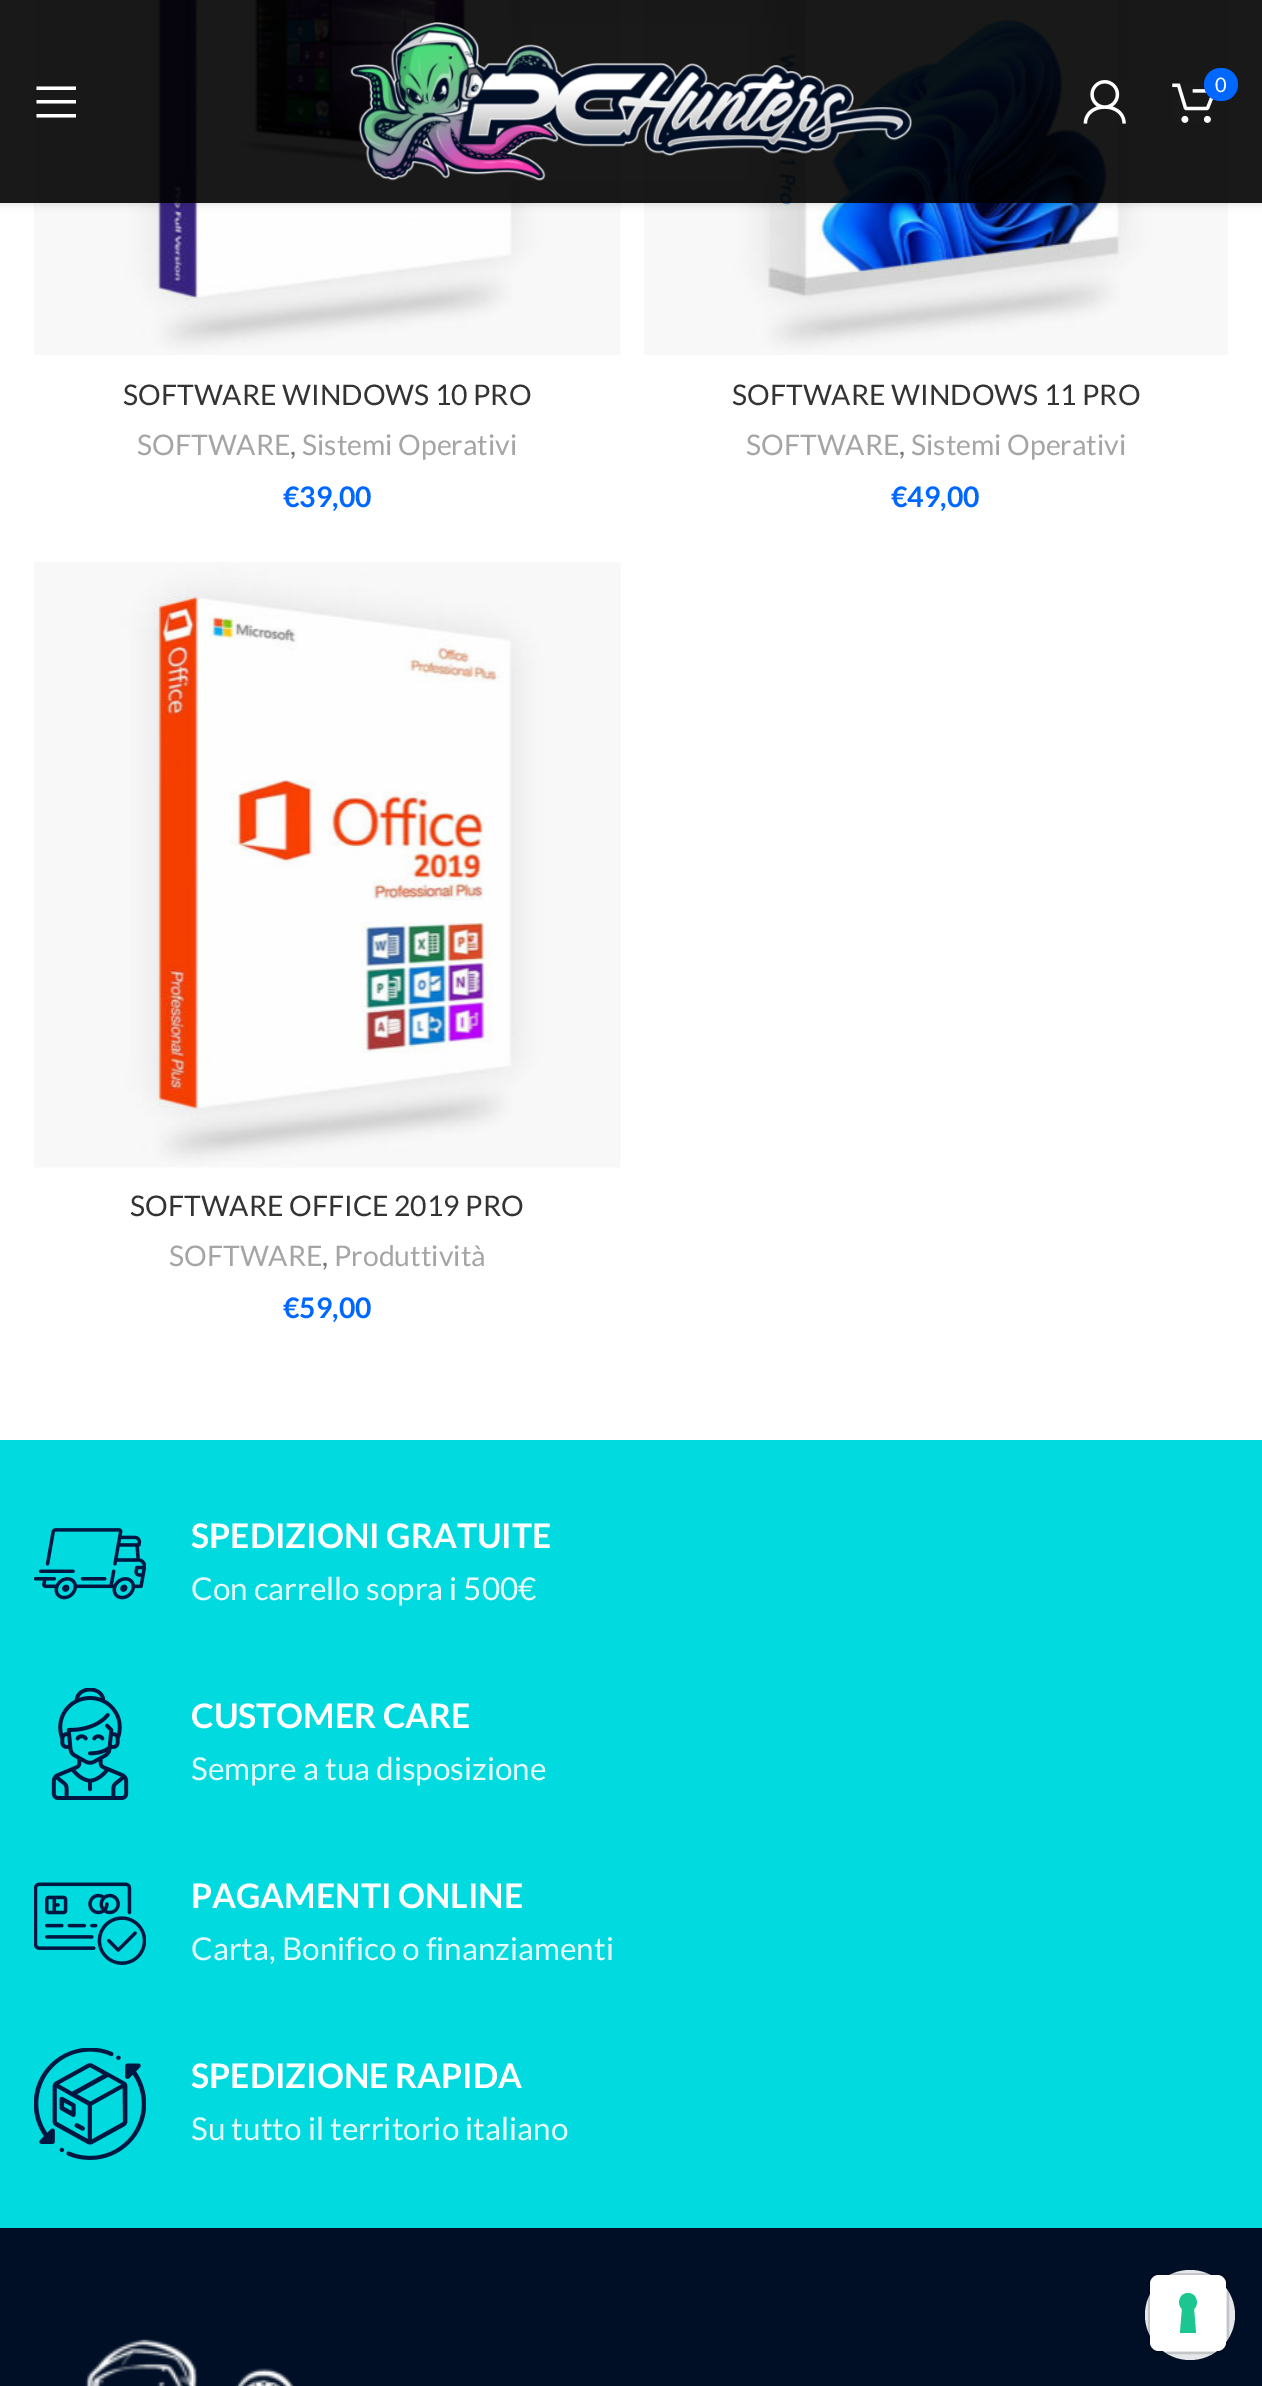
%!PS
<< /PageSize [1262 2386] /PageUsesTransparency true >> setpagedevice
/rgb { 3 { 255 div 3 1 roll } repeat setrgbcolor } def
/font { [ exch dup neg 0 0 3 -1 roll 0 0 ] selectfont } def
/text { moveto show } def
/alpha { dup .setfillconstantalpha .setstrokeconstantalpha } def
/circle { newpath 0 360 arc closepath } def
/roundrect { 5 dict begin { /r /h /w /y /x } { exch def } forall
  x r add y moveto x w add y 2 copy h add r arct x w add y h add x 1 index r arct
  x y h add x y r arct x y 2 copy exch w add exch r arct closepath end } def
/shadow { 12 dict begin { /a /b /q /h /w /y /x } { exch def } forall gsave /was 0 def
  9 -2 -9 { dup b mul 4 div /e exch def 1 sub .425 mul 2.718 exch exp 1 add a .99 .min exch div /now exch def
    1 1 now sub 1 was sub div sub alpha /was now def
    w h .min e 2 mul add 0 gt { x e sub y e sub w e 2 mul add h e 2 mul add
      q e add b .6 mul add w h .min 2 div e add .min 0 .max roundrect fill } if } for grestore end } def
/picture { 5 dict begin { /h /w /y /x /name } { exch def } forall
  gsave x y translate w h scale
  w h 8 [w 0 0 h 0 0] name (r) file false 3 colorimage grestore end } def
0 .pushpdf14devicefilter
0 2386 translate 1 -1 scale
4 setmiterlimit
255 255 255 rgb
0 0 1262 2386 rectfill
(img_04.rgb) 34 0 587 355 picture
(img_05.rgb) 644 0 584 355 picture
gsave
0 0 moveto 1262 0 rlineto 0 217 rlineto -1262 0 rlineto closepath 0 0 moveto 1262 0 rlineto 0 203 rlineto -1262 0 rlineto closepath eoclip newpath
0 0 0 rgb
0 2 1262 203 0 3.5 0.1 shadow
grestore
0.9 alpha
0 0 0 rgb
0 0 1262 203 rectfill
1 alpha
255 255 255 rgb
36.5 90 moveto 39.5 0 rlineto 0 -3.5 rlineto -39.5 0 rlineto closepath 36.5 103.5 moveto 39.5 0 rlineto 0 -3.5 rlineto -39.5 0 rlineto closepath 36.5 117.5 moveto 39.5 0 rlineto 0 -3.5 rlineto -39.5 0 rlineto closepath fill
(img_01.rgb) 350 22 562 159 picture
(img_02.rgb) 1083 80 43 44 picture
(img_03.rgb) 1172 83 41 40 picture
0 104 255 rgb
1204 68 34 33 16.5 roundrect fill
(img_06.rgb) 34 562 587 606 picture
1 218 222 rgb
0 1440 1262 788 rectfill
(img_07.rgb) 34 1528 112 72 picture
(img_08.rgb) 51 1688 78 112 picture
(img_09.rgb) 34 1882 112 83 picture
(img_10.rgb) 34 2048 112 112 picture
0 15 38 rgb
0 2228 1262 158 rectfill
(img_11.rgb) 85 2339 209 47 picture
0.9 alpha
255 255 255 rgb
1190 2315 45 circle fill
0.15 alpha
0 0 0 rgb
2 setlinewidth
1149 2274 79 79 10 roundrect stroke
1 alpha
255 255 255 rgb
1150 2275 76 76 9 roundrect fill
28 198 145 rgb
1188 2293 moveto 8 0 12 10 6 16 rcurveto 2 24 rlineto -16 0 rlineto 2 -24 rlineto -6 -6 -2 -16 6 -16 rcurveto closepath eofill
/Lato-Regular 20 font
255 255 255 rgb
(0) 1215 92 text
/Lato-Regular 28.4 font
51 51 51 rgb
(SOFTWARE WINDOWS 10 PRO) 123 405 text
165 165 165 rgb
(SOFTWARE) 137 455 text
119 119 119 rgb
(,) 290 455 text
165 165 165 rgb
(Sistemi Operativi) 302 455 text
/Lato-Bold 28.4 font
0 104 255 rgb
(€39,00) 283 507 text
/Lato-Regular 28.4 font
51 51 51 rgb
(SOFTWARE WINDOWS 11 PRO) 732 405 text
165 165 165 rgb
(SOFTWARE) 746 455 text
119 119 119 rgb
(,) 899 455 text
165 165 165 rgb
(Sistemi Operativi) 911 455 text
/Lato-Bold 28.4 font
0 104 255 rgb
(€49,00) 891 507 text
/Lato-Regular 28.4 font
51 51 51 rgb
(SOFTWARE OFFICE 2019 PRO) 130 1216 text
165 165 165 rgb
(SOFTWARE) 169 1266 text
119 119 119 rgb
(,) 322 1266 text
165 165 165 rgb
(Produttività) 334 1266 text
/Lato-Bold 28.4 font
0 104 255 rgb
(€59,00) 283 1318 text
/Lato-Bold 33.75 font
255 255 255 rgb
(SPEDIZIONI GRATUITE) 191 1548 text
/Lato-Regular 31.5 font
230 251 252 rgb
(Con carrello sopra i 500€) 191 1600 text
/Lato-Bold 33.75 font
255 255 255 rgb
(CUSTOMER CARE) 191 1728 text
/Lato-Regular 31.5 font
230 251 252 rgb
(Sempre a tua disposizione) 191 1780 text
/Lato-Bold 33.75 font
255 255 255 rgb
(PAGAMENTI ONLINE) 191 1908 text
/Lato-Regular 31.5 font
230 251 252 rgb
(Carta, Bonifico o finanziamenti) 191 1960 text
/Lato-Bold 33.75 font
255 255 255 rgb
(SPEDIZIONE RAPIDA) 191 2088 text
/Lato-Regular 31.5 font
230 251 252 rgb
(Su tutto il territorio italiano) 191 2140 text
.poppdf14devicefilter showpage
